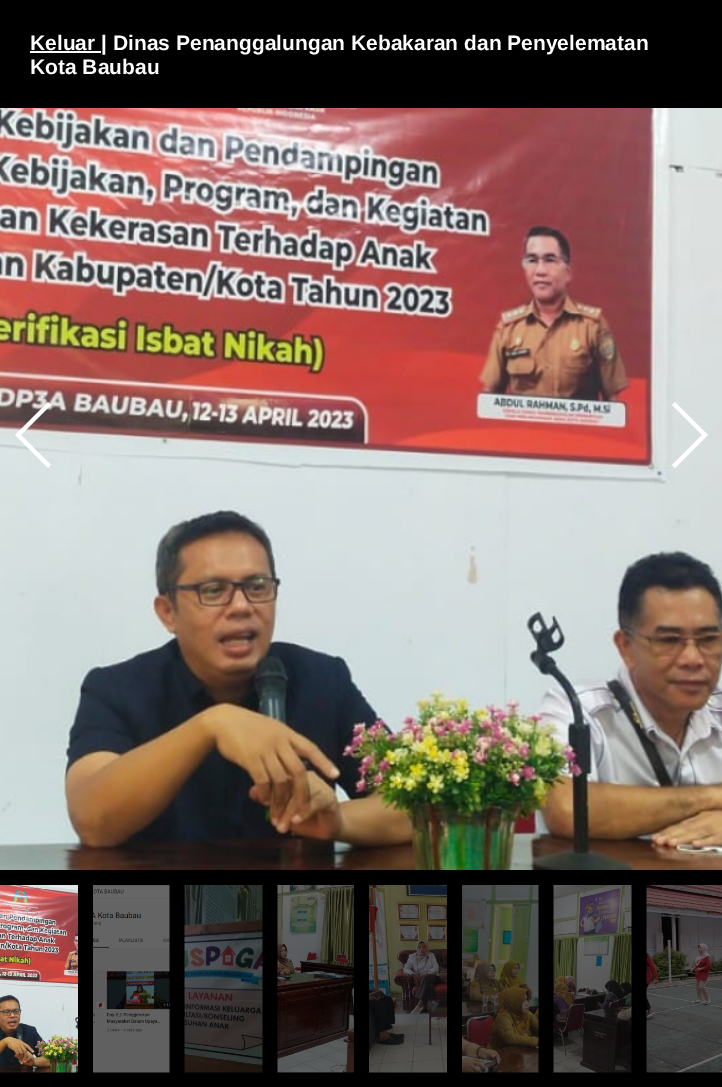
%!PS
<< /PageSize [722 1087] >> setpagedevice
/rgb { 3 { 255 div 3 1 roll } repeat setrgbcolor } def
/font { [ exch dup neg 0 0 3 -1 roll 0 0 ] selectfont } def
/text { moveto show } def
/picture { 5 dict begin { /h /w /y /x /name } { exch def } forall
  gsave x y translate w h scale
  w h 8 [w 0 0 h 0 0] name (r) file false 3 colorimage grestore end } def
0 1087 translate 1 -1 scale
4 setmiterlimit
0 0 0 rgb
0 0 722 1087 rectfill
255 255 255 rgb
30 51 71 2 rectfill
(img_01.rgb) 0 108 722 762 picture
15 435 moveto 33 -33 rlineto 3 3 rlineto -30 30 rlineto 30 30 rlineto -3 3 rlineto closepath fill
708 435 moveto -33 33 rlineto -3 -3 rlineto 30 -30 rlineto -30 -30 rlineto 3 -3 rlineto closepath fill
(img_02.rgb) 0 885 78 188 picture
(img_03.rgb) 93 885 77 188 picture
(img_04.rgb) 184 885 79 188 picture
(img_05.rgb) 277 885 77 188 picture
(img_06.rgb) 369 885 78 188 picture
(img_07.rgb) 462 885 77 188 picture
(img_08.rgb) 553 885 79 188 picture
(img_09.rgb) 646 885 76 188 picture
/LiberationSans-Bold 21 font
(Keluar | Dinas Penanggalungan Kebakaran dan Penyelematan) 30 50 text
(Kota Baubau) 30 74 text
showpage
